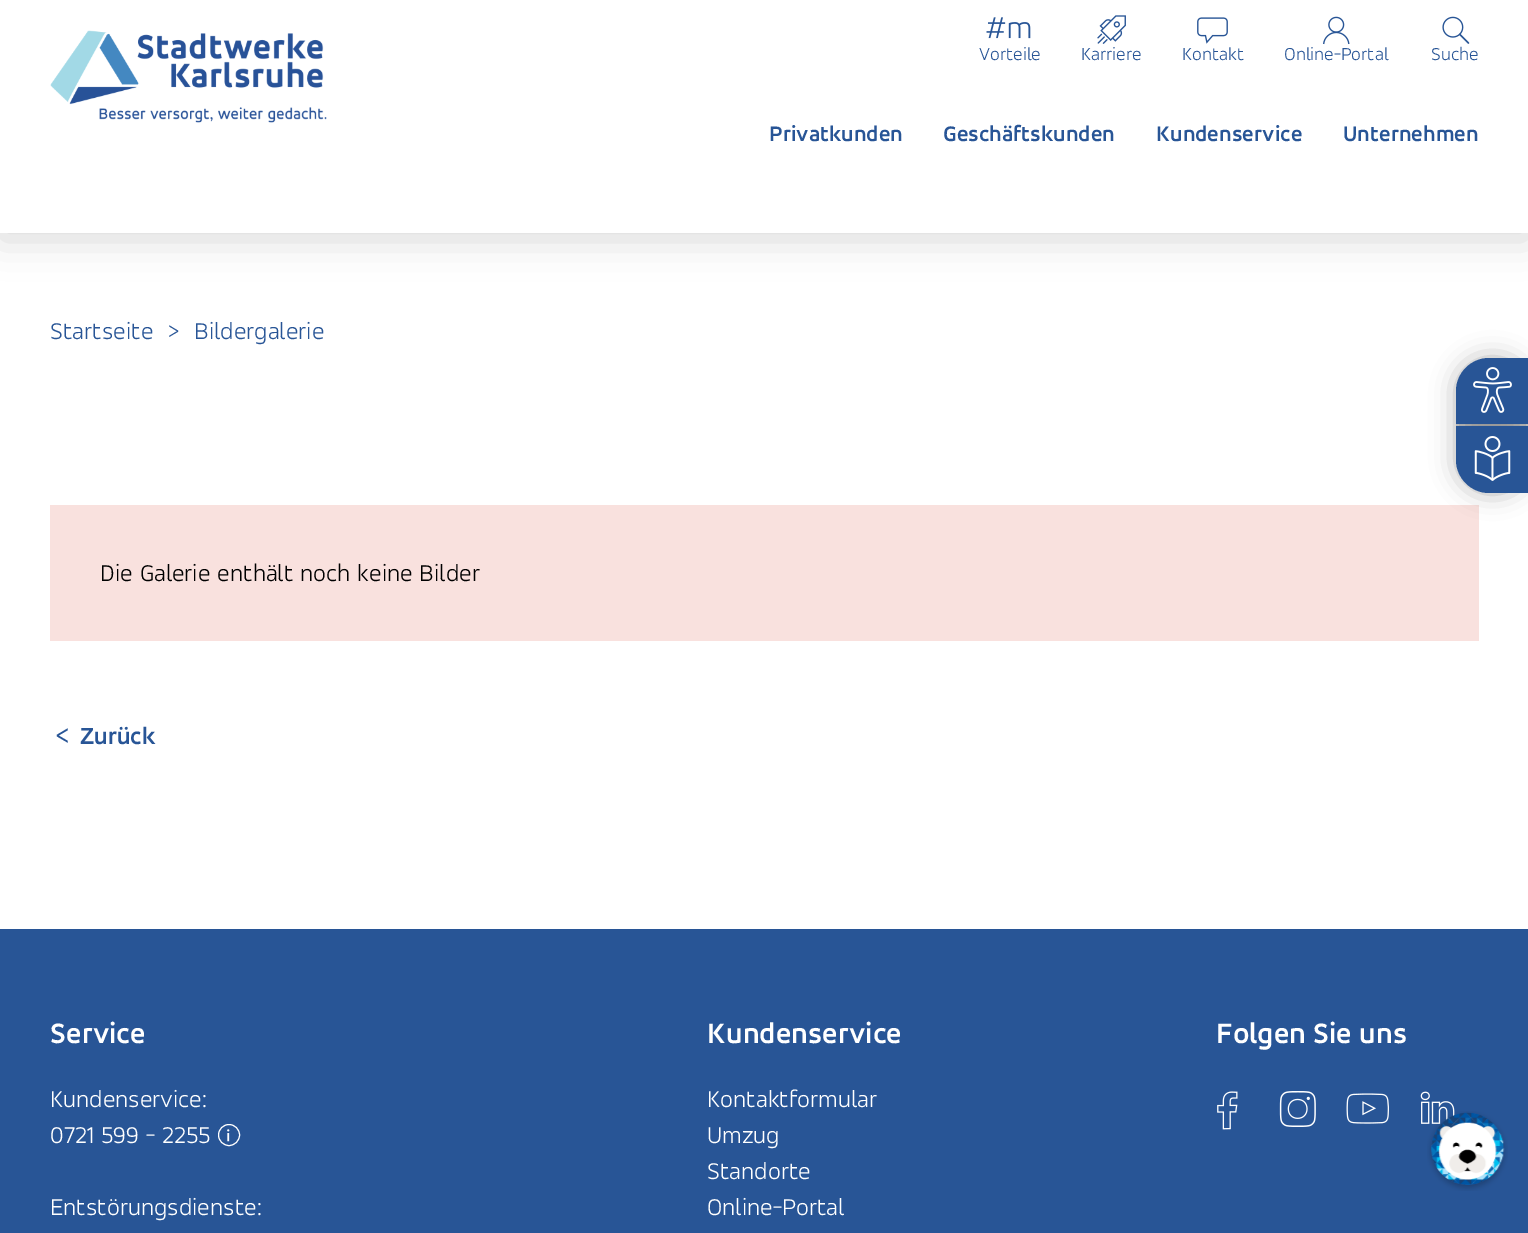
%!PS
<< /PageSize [1528 1233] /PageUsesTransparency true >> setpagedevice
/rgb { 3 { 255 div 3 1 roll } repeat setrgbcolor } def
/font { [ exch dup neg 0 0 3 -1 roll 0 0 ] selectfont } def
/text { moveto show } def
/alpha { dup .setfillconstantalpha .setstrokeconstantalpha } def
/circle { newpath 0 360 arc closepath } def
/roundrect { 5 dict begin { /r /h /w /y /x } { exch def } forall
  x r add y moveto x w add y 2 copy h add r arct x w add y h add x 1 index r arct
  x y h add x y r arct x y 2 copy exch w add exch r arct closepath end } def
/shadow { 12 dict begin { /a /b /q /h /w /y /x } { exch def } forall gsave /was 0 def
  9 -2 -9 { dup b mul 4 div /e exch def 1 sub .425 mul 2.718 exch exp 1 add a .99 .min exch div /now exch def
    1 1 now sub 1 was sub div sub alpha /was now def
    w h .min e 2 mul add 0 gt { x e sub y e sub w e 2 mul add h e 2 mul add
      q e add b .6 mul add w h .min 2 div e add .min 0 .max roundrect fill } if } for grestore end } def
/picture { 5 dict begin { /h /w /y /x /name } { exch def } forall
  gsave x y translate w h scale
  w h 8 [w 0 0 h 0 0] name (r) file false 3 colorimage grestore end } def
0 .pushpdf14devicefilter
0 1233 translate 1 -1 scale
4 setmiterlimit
255 255 255 rgb
0 0 1528 1233 rectfill
gsave
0 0 moveto 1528 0 rlineto 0 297 rlineto -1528 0 rlineto closepath 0 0 moveto 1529 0 rlineto 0 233 rlineto -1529 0 rlineto closepath eoclip newpath
0 0 0 rgb
0 6 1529 233 0 19 0.15 shadow
grestore
(img_01.rgb) 50 30 277 93 picture
(img_02.rgb) 986 17 45 22 picture
(img_03.rgb) 1097 15 29 29 picture
(img_04.rgb) 1197 17 31 27 picture
(img_05.rgb) 1323 16 27 29 picture
(img_06.rgb) 1442 16 28 28 picture
249 225 222 rgb
50 505 1429 136 rectfill
0 0 0 rgb
1456 358 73 135 33 12.5 0.3 shadow
40 85 150 rgb
1489 358 moveto 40 0 rlineto 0 66 rlineto -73 0 rlineto 0 -33 rlineto 0 -18 15 -33 33 -33 rcurveto closepath fill
0.15 alpha
0 0 0 rgb
1456 424 72 2 rectfill
1 alpha
(img_07.rgb) 1473 367 39 46 picture
40 85 150 rgb
1456 426 moveto 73 0 rlineto 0 67 rlineto -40 0 rlineto -18 0 -33 -15 -33 -33 rcurveto closepath fill
(img_08.rgb) 1474 436 37 45 picture
0 929 1528 304 rectfill
255 255 255 rgb
229 1135 10.5 circle stroke
(img_09.rgb) 227 1129 3 13 picture
(img_10.rgb) 1217 1091 21 39 picture
(img_11.rgb) 1279 1091 37 36 picture
(img_12.rgb) 1346 1093 43 31 picture
(img_13.rgb) 1420 1091 35 33 picture
(img_14.rgb) 1427 1111 81 80 picture
/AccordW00-Light 19 font
40 85 150 rgb
(Vorteile) 979 60 text
(Karriere) 1081 60 text
(Kontakt) 1182 60 text
(Online-Portal) 1284 60 text
(Suche) 1431 60 text
/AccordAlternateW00-Bold 22.5 font
(Privatkunden) 769 141 text
(Geschäftskunden) 943 141 text
(Kundenservice) 1156 141 text
(Unternehmen) 1343 141 text
/AccordW00-Light 25 font
(Startseite) 50 339 text
(>) 168 339 text
(Bildergalerie) 194 339 text
0 0 0 rgb
(Die Galerie enthält noch keine Bilder) 100 581 text
/AccordW00-Regular 30 font
40 85 150 rgb
(<) 56 745 text
/AccordW00-Bold 25 font
(Zurück) 80 744 text
/AccordAlternateW00-Bold 30 font
255 255 255 rgb
(Service) 50 1043 text
/AccordW00-Light 25 font
(Kundenservice:) 50 1107 text
(0721 599 - 2255) 50 1143 text
(Entstörungsdienste:) 50 1215 text
/AccordAlternateW00-Bold 30 font
(Kundenservice) 707 1043 text
/AccordW00-Light 25 font
(Kontaktformular) 707 1107 text
(Umzug) 707 1143 text
(Standorte) 707 1179 text
(Online-Portal) 707 1215 text
/AccordAlternateW00-Bold 30 font
(Folgen Sie uns) 1216 1043 text
.poppdf14devicefilter showpage
